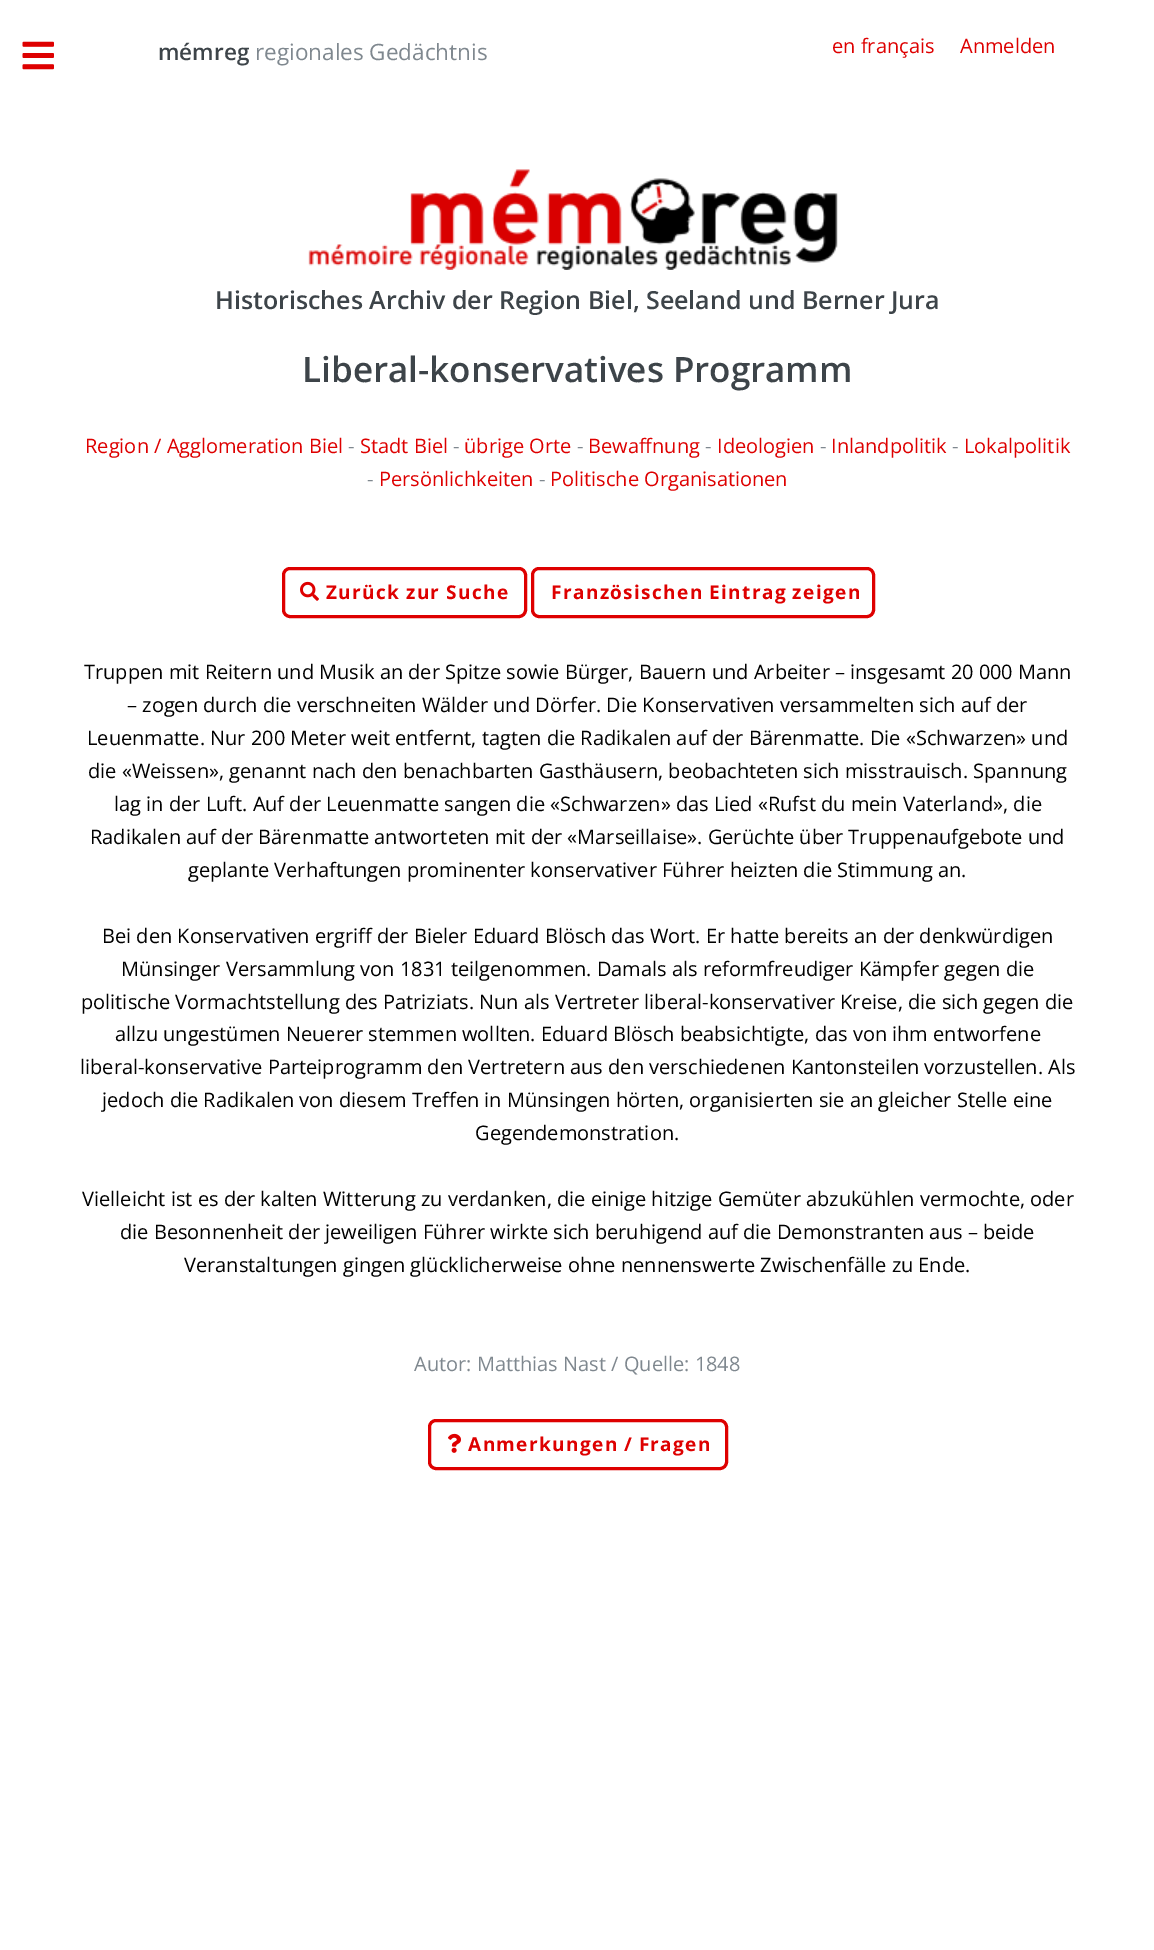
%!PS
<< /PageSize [1154 1950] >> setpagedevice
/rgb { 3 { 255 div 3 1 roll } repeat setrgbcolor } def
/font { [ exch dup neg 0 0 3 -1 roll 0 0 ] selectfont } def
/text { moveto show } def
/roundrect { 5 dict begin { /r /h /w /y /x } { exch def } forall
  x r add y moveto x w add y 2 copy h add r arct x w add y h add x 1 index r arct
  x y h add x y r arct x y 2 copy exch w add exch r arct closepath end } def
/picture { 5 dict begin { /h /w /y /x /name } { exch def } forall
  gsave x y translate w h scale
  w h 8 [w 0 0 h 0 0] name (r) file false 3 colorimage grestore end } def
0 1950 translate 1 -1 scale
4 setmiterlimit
255 255 255 rgb
0 0 1154 1950 rectfill
(img_01.rgb) 22 41 32 29 picture
(img_02.rgb) 308 169 530 101 picture
222 0 0 rgb
3 setlinewidth
283.5 568.5 242 48 6.5 roundrect stroke
(img_03.rgb) 300 581 19 20 picture
532.5 568.5 341 48 6.5 roundrect stroke
429.5 1420.5 297 48 6.5 roundrect stroke
(img_04.rgb) 448 1433 13 20 picture
/OpenSans-SemiBold 22.5 font
61 68 73 rgb
(mémreg) 158 60 text
/OpenSans-Regular 22.5 font
127 136 143 rgb
(regionales Gedächtnis) 255 60 text
/OpenSans-Regular 20 font
222 0 0 rgb
(en français) 832 53 text
(Anmelden) 960 53 text
/OpenSans-SemiBold 25 font
61 68 73 rgb
(Historisches Archiv der Region Biel, Seeland und Berner Jura) 215 309 text
/OpenSans-SemiBold 35 font
(Liberal-konservatives Programm) 302 382 text
/OpenSans-Regular 20 font
222 0 0 rgb
(Region / Agglomeration Biel) 85 453 text
127 136 143 rgb
(-) 348 453 text
222 0 0 rgb
(Stadt Biel) 360 453 text
127 136 143 rgb
(-) 453 453 text
222 0 0 rgb
(übrige Orte) 464 453 text
127 136 143 rgb
(-) 577 453 text
222 0 0 rgb
(Bewaffnung) 588 453 text
127 136 143 rgb
(-) 705 453 text
222 0 0 rgb
(Ideologien) 717 453 text
127 136 143 rgb
(-) 820 453 text
222 0 0 rgb
(Inlandpolitik) 831 453 text
127 136 143 rgb
(-) 952 453 text
222 0 0 rgb
(Lokalpolitik) 964 453 text
127 136 143 rgb
(-) 367 486 text
222 0 0 rgb
(Persönlichkeiten) 379 486 text
127 136 143 rgb
(-) 539 486 text
222 0 0 rgb
(Politische Organisationen) 550 486 text
/OpenSans-Bold 19 font
326 599 moveto -1 0 32 1.4 0 (Zurück zur Suche) awidthshow
551 599 moveto -1 0 32 1.4 0 (Französischen Eintrag zeigen) awidthshow
/OpenSans-Regular 20 font
0 0 0 rgb
(Truppen mit Reitern und Musik an der Spitze sowie Bürger, Bauern und Arbeiter – insgesamt 20 000 Mann) 84 679 text
(– zogen durch die verschneiten Wälder und Dörfer. Die Konservativen versammelten sich auf der) 127 712 text
(Leuenmatte. Nur 200 Meter weit entfernt, tagten die Radikalen auf der Bärenmatte. Die «Schwarzen» und) 87 745 text
(die «Weissen», genannt nach den benachbarten Gasthäusern, beobachteten sich misstrauisch. Spannung) 88 778 text
(lag in der Luft. Auf der Leuenmatte sangen die «Schwarzen» das Lied «Rufst du mein Vaterland», die) 114 811 text
(Radikalen auf der Bärenmatte antworteten mit der «Marseillaise». Gerüchte über Truppenaufgebote und) 90 844 text
(geplante Verhaftungen prominenter konservativer Führer heizten die Stimmung an.) 188 877 text
(Bei den Konservativen ergriff der Bieler Eduard Blösch das Wort. Er hatte bereits an der denkwürdigen) 102 943 text
(Münsinger Versammlung von 1831 teilgenommen. Damals als reformfreudiger Kämpfer gegen die) 121 976 text
(politische Vormachtstellung des Patriziats. Nun als Vertreter liberal-konservativer Kreise, die sich gegen die) 81 1009 text
(allzu ungestümen Neuerer stemmen wollten. Eduard Blösch beabsichtigte, das von ihm entworfene) 115 1041 text
(liberal-konservative Parteiprogramm den Vertretern aus den verschiedenen Kantonsteilen vorzustellen. Als) 80 1074 text
(jedoch die Radikalen von diesem Treffen in Münsingen hörten, organisierten sie an gleicher Stelle eine) 102 1107 text
(Gegendemonstration.) 475 1140 text
(Vielleicht ist es der kalten Witterung zu verdanken, die einige hitzige Gemüter abzukühlen vermochte, oder) 82 1206 text
(die Besonnenheit der jeweiligen Führer wirkte sich beruhigend auf die Demonstranten aus – beide) 120 1239 text
(Veranstaltungen gingen glücklicherweise ohne nennenswerte Zwischenfälle zu Ende.) 184 1272 text
127 136 143 rgb
(Autor: Matthias Nast / Quelle: 1848) 414 1371 text
/OpenSans-Bold 19 font
222 0 0 rgb
468 1451 moveto -1 0 32 1.4 0 (Anmerkungen / Fragen) awidthshow
showpage
